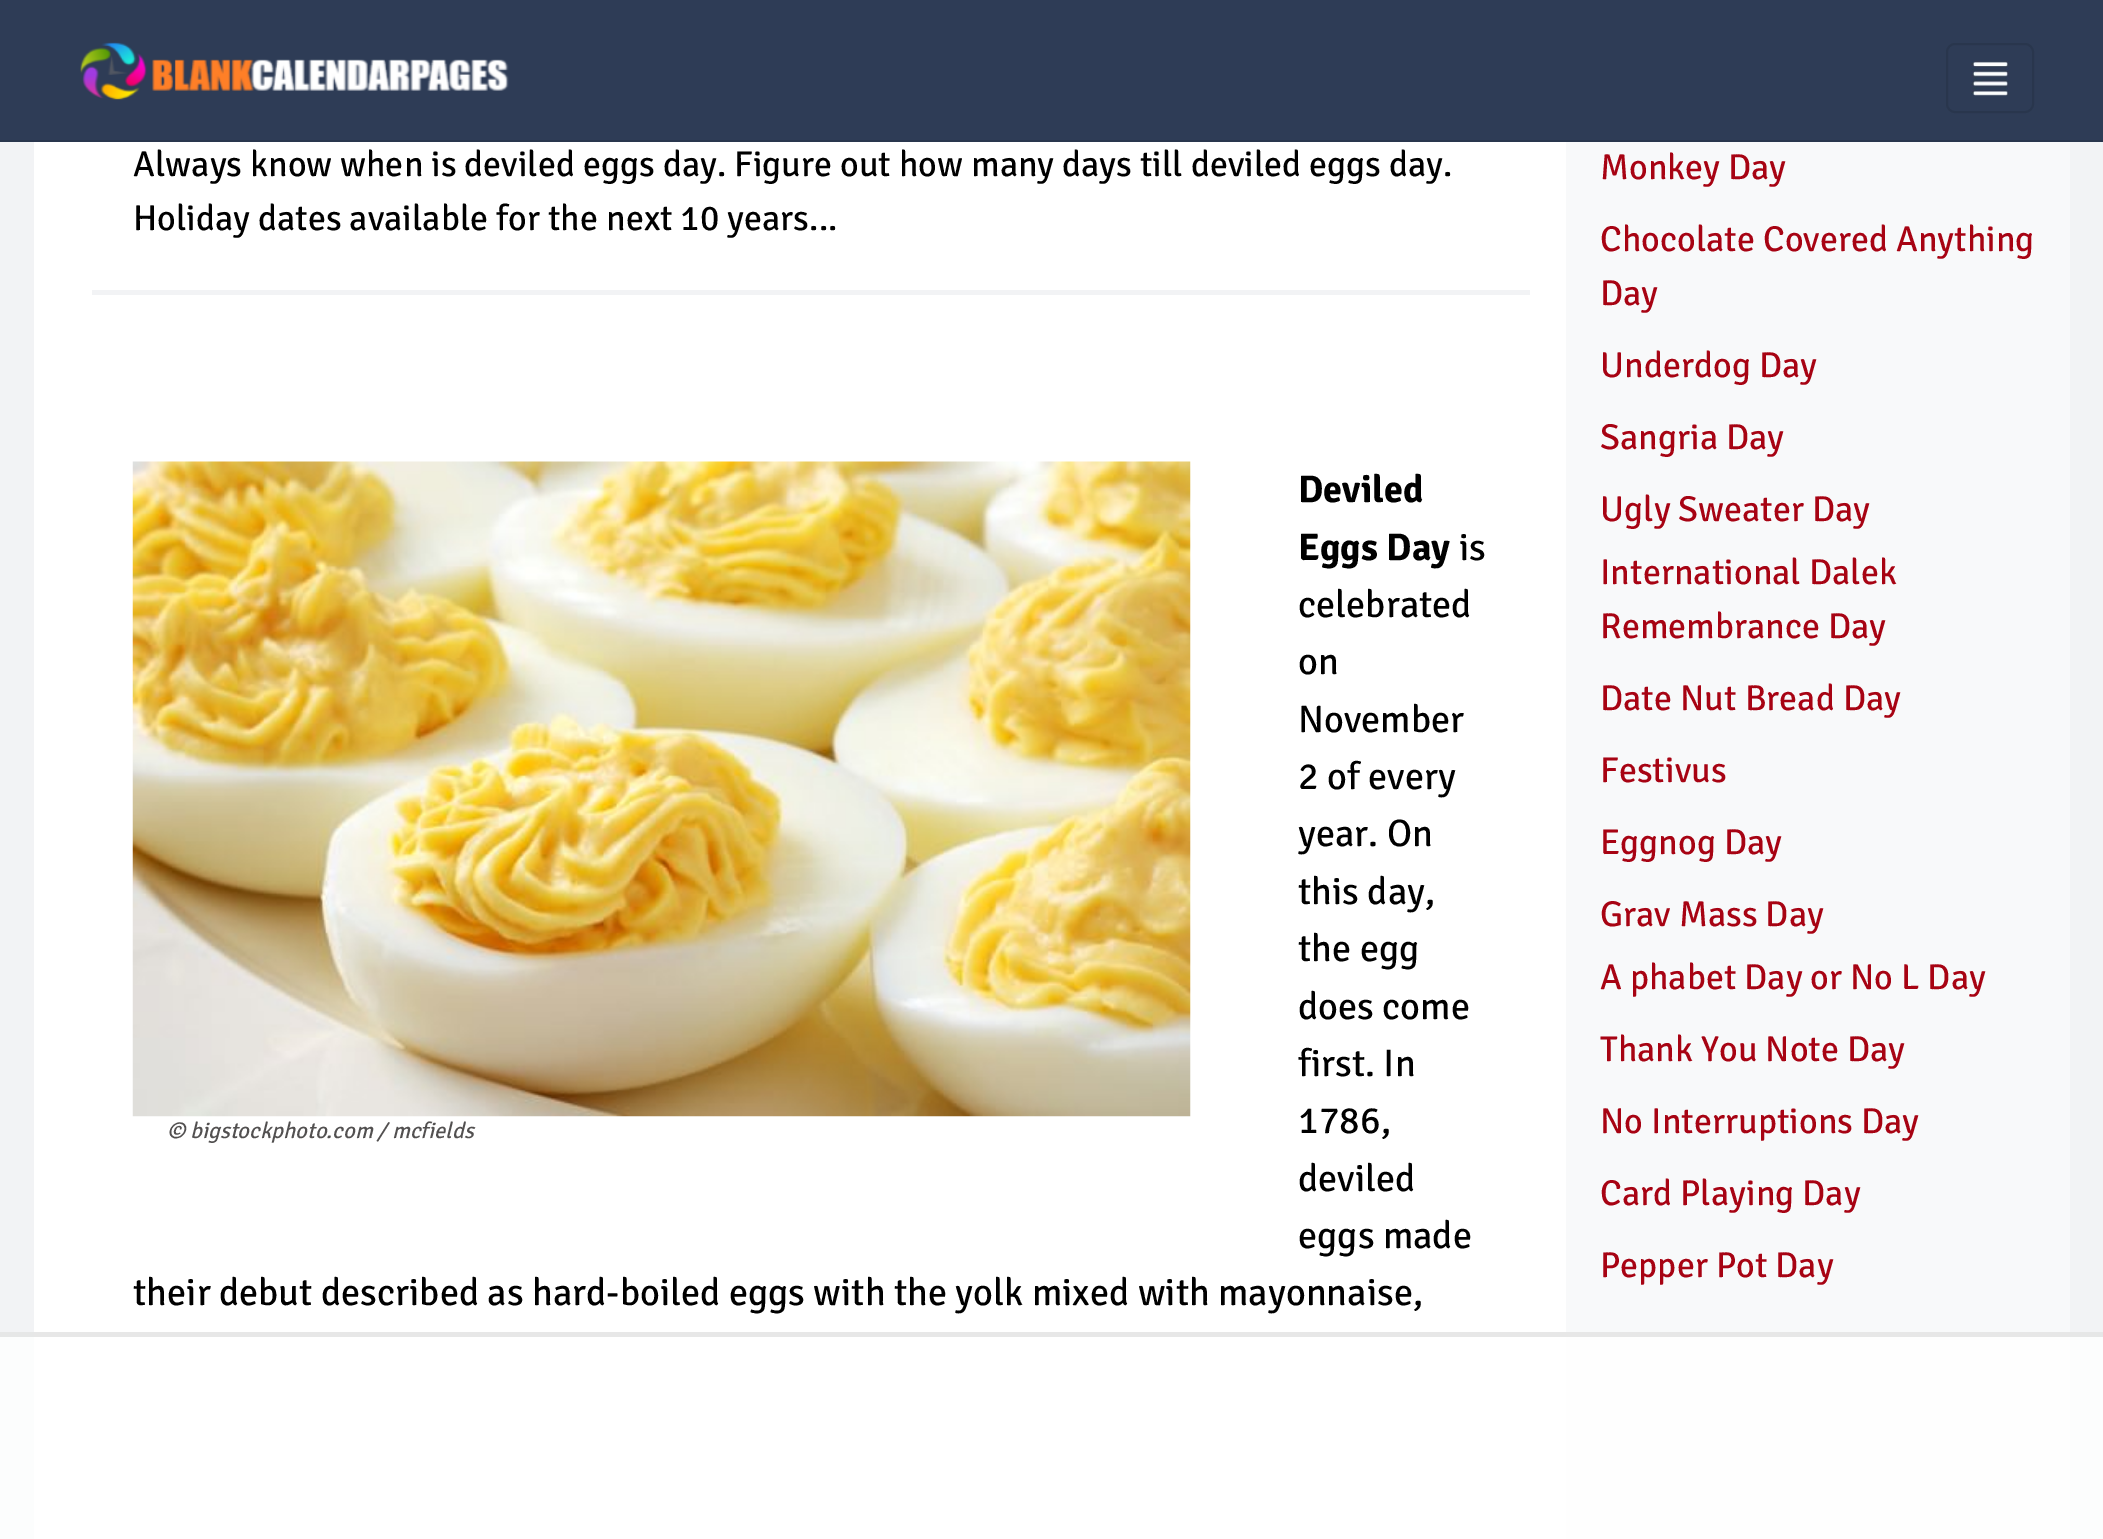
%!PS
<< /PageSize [2103 1539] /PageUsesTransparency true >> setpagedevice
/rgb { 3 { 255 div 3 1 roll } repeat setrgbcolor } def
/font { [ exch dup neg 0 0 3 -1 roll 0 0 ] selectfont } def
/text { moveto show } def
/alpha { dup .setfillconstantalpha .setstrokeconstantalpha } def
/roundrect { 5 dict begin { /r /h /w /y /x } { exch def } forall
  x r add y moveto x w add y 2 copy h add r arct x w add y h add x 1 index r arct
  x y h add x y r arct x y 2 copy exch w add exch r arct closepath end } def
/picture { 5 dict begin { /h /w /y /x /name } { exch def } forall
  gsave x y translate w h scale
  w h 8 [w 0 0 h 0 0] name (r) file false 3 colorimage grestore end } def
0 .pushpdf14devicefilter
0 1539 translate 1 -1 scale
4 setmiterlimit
242 243 245 rgb
0 0 2103 1539 rectfill
46 60 86 rgb
0 0 2103 140 rectfill
41 54 77 rgb
0 140 2103 2 rectfill
(img_01.rgb) 80 42 429 58 picture
2 setlinewidth
1947 44 86 68 8 roundrect stroke
(img_02.rgb) 1971 61 38 35 picture
255 255 255 rgb
34 142 1532 1397 rectfill
242 243 245 rgb
92 290 1438 5 rectfill
(img_03.rgb) 132 461 1059 656 picture
248 249 250 rgb
1566 142 504 1397 rectfill
0.8 alpha
255 255 255 rgb
0 1332 2103 207 rectfill
225 225 225 rgb
0 1332 2103 5 rectfill
/SignikaNegative-Regular 36 font
1 alpha
0 0 0 rgb
(Always know when is deviled eggs day. Figure out how many days till deviled eggs day.) 133 176 text
(Holiday dates available for the next 10 years...) 133 230 text
/SignikaNegative-Bold 38.25 font
(Deviled) 1298 502 text
(Eggs Day) 1298 560 text
/SignikaNegative-Regular 38.25 font
(is) 1459 560 text
(celebrated) 1298 617 text
(on) 1298 674 text
(November) 1298 732 text
(2 of every) 1298 789 text
(year. On) 1298 846 text
(this day,) 1298 904 text
(the egg) 1298 961 text
(does come) 1298 1019 text
(first. In) 1298 1076 text
/SignikaNegative-Italic 22.5 font
82 80 80 rgb
(© bigstockphoto.com / mcfields) 167 1138 text
/SignikaNegative-Regular 38.25 font
0 0 0 rgb
(1786,) 1298 1133 text
(deviled) 1298 1191 text
(eggs made) 1298 1248 text
(their debut described as hard-boiled eggs with the yolk mixed with mayonnaise,) 133 1305 text
/SignikaNegative-Regular 36 font
167 3 19 rgb
(Monkey Day) 1600 179 text
(Chocolate Covered Anything) 1600 251 text
(Day) 1600 305 text
(Underdog Day) 1600 377 text
(Sangria Day) 1600 449 text
(Ugly Sweater Day) 1600 521 text
(International Dalek) 1600 584 text
(Remembrance Day) 1600 638 text
(Date Nut Bread Day) 1600 710 text
(Festivus) 1600 782 text
(Eggnog Day) 1600 854 text
(Grav Mass Day) 1600 926 text
(A phabet Day or No L Day) 1600 989 text
(Thank You Note Day) 1600 1061 text
(No Interruptions Day) 1600 1133 text
(Card Playing Day) 1600 1205 text
(Pepper Pot Day) 1600 1277 text
.poppdf14devicefilter showpage
